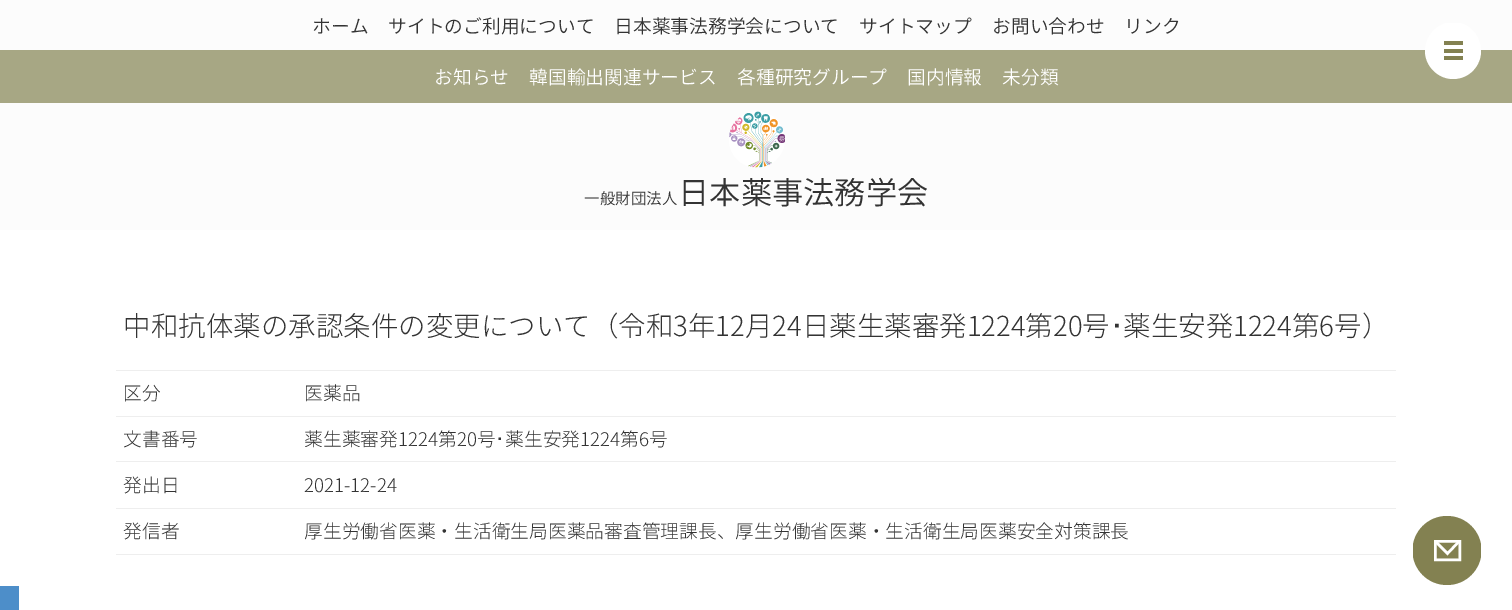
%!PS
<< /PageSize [1512 610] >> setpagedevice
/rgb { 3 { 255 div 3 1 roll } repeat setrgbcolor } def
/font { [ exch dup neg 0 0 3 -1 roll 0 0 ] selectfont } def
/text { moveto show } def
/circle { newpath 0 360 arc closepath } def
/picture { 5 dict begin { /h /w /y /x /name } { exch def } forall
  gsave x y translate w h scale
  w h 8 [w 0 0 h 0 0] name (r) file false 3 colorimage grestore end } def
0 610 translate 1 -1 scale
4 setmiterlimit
255 255 255 rgb
0 0 1512 610 rectfill
252 252 252 rgb
0 0 1512 230 rectfill
(img_01.rgb) 729 111 56 57 picture
167 167 132 rgb
0 50 1512 53 rectfill
238 238 238 rgb
116 554 1280 1 rectfill
116 370 1280 1 rectfill
116 416 1280 1 rectfill
116 461 1280 1 rectfill
116 508 1280 1 rectfill
gsave
1425 23 56 56 rectclip
255 255 255 rgb
1425 51 moveto 0 -16 13 -29 28 -29 rcurveto 16 0 28 13 28 29 rcurveto 0 15 -12 28 -28 28 rcurveto -15 0 -28 -13 -28 -28 rcurveto closepath eofill
grestore
131 129 81 rgb
1444 41 19 4 rectfill
1444 49 19 4 rectfill
1444 56 19 4 rectfill
gsave
1413 516 68 69 rectclip
1447 550.5 34.5 circle fill
grestore
255 255 255 rgb
2.5 setlinewidth
2 setlinecap
1436 542 moveto 11.5 11.5 rlineto 11 -11.5 rlineto stroke
0 setlinecap
1435.25 541.25 24.5 18.5 rectstroke
77 142 201 rgb
0 586 19 24 rectfill
/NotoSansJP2-Light 18.75 font
51 51 51 rgb
(ホーム) 312 33 text
(サイトのご利用について) 388 33 text
(日本薬事法務学会について) 614 33 text
(サイトマップ) 859 33 text
(お問い合わせ) 992 33 text
(リンク) 1124 33 text
255 255 255 rgb
(お知らせ) 434 84 text
(韓国輸出関連サービス) 529 84 text
(各種研究グループ) 737 84 text
(国内情報) 907 84 text
(未分類) 1002 84 text
/NotoSansJP2-Light 15.5 font
51 51 51 rgb
(一般財団法人) 584 204 text
/NotoSansJP2-Light 31.25 font
(日本薬事法務学会) 678 204 text
/NotoSansJP-Light 27.5 font
(中和抗体薬の承認条件の変更について（令和3年12月24日薬生薬審発1224第20号) 123 336 text
/IPAPGothic-Regular 27.5 font
(･) 1110 336 text
/NotoSansJP-Light 27.5 font
(薬生安発1224第6号）) 1123 336 text
/NotoSansJP-Light 18.75 font
(区分) 123 400 text
(医薬品) 304 400 text
(文書番号) 123 446 text
(薬生薬審発1224第20号) 304 446 text
/IPAPGothic-Regular 18.75 font
(･) 495 446 text
/NotoSansJP-Light 18.75 font
(薬生安発1224第6号) 505 446 text
(発出日) 123 492 text
(2021-12-24) 304 492 text
(発信者) 123 538 text
(厚生労働省医薬・生活衛生局医薬品審査管理課長、厚生労働省医薬・生活衛生局医薬安全対策課長) 304 538 text
showpage
